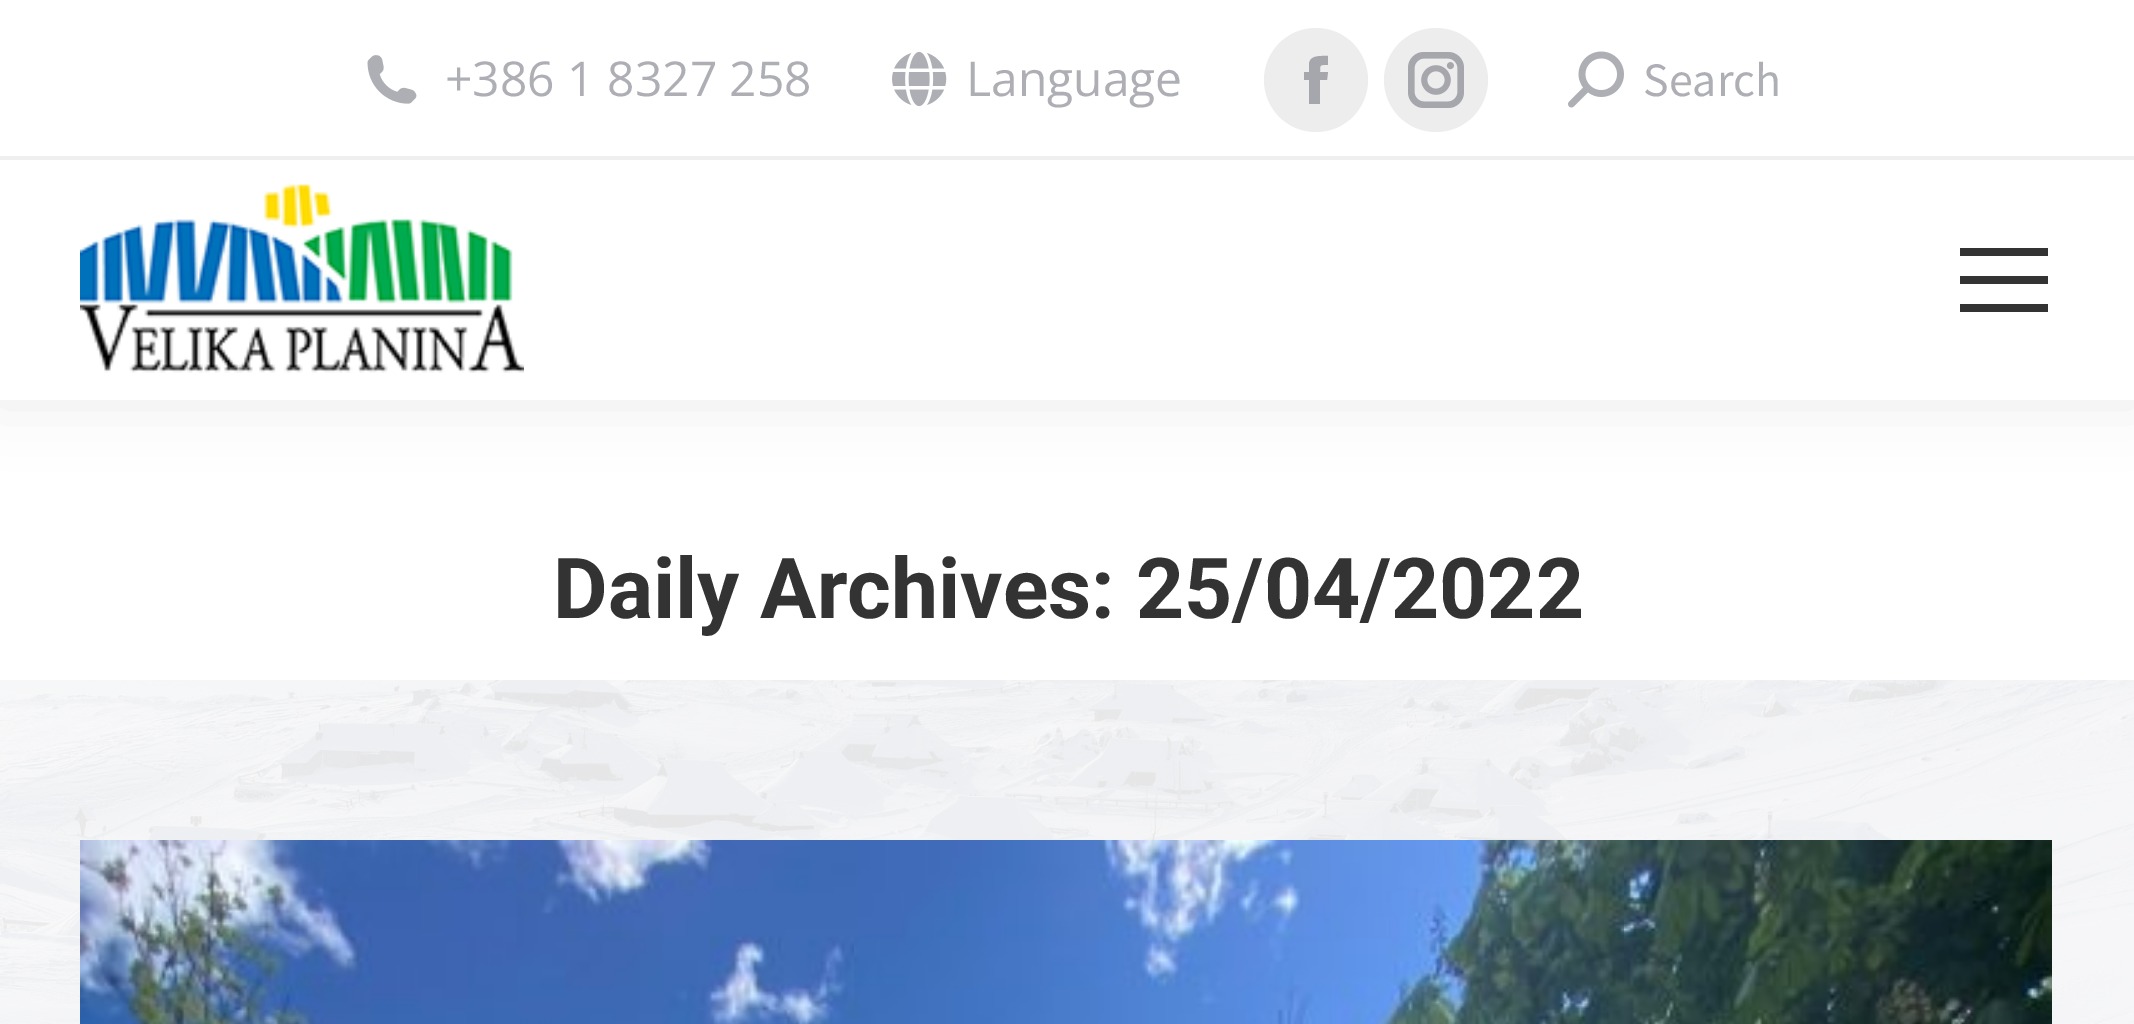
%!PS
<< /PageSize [2134 1024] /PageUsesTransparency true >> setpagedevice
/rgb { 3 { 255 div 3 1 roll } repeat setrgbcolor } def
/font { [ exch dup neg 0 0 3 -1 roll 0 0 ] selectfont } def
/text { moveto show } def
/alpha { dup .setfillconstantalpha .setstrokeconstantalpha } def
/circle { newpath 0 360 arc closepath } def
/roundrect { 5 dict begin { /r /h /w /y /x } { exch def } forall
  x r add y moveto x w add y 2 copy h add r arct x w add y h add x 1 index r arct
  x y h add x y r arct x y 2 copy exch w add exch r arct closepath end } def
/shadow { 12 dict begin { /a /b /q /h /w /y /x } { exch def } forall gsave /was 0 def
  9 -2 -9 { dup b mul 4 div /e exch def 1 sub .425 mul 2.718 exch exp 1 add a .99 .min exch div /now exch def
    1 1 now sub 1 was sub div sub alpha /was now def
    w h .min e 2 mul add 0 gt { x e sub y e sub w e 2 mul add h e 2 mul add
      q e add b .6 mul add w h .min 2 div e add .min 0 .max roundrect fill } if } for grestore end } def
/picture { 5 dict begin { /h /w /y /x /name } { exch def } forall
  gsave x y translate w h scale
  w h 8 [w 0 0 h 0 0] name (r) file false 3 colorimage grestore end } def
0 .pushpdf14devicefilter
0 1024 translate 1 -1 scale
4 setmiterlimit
255 255 255 rgb
0 0 2134 1024 rectfill
(img_01.rgb) 0 680 2134 344 picture
0 0 0 rgb
-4 -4 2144 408 0 30 0.07 shadow
255 255 255 rgb
0 0 2134 400 rectfill
(img_02.rgb) 367 55 50 49 picture
(img_03.rgb) 892 51 55 56 picture
237 237 238 rgb
1316 80 52 circle fill
166 167 173 rgb
1309 65 moveto 0 -10 11 -9 19 -9 rcurveto 0 9 rlineto -8 0 -8 -1 -8 7 rcurveto 8 0 rlineto -1 8 rlineto -7 0 rlineto 0 24 rlineto -11 0 rlineto 0 -24 rlineto -5 0 rlineto 0 -8 rlineto 5 0 rlineto closepath fill
237 237 238 rgb
1436 80 52 circle fill
(img_04.rgb) 1408 52 56 56 picture
(img_05.rgb) 1568 51 56 57 picture
239 239 239 rgb
0 156 2134 4 rectfill
(img_06.rgb) 80 184 444 189 picture
51 51 51 rgb
1960 248 88 8 rectfill
1960 276 88 8 rectfill
1960 304 88 8 rectfill
(img_07.rgb) 80 840 1972 184 picture
/OpenSans-Regular 48 font
174 175 181 rgb
(+386 1 8327 258) 445 96 text
(Language) 966 96 text
/SourceSansPro-Regular 48 font
(Search) 1643 96 text
/Roboto-Bold 84 font
51 51 51 rgb
(Daily Archives: 25/04/2022) 553 618 text
.poppdf14devicefilter showpage
